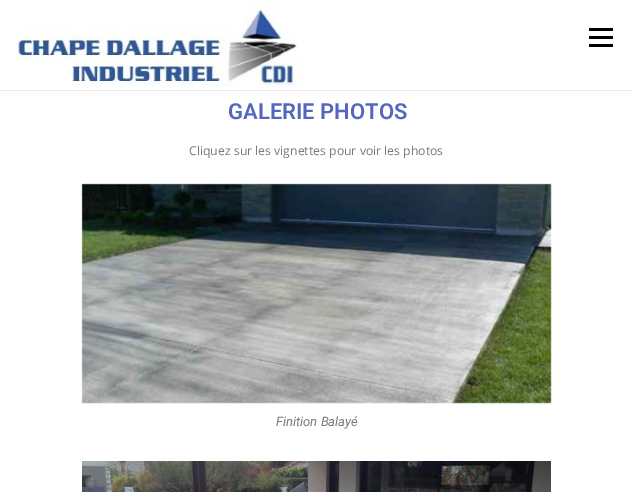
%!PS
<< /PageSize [633 492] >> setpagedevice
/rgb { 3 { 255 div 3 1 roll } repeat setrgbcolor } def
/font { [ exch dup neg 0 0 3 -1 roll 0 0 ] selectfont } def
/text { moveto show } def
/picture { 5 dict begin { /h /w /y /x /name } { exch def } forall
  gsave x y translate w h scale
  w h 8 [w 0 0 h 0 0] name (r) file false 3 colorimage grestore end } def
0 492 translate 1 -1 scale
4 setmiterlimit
255 255 255 rgb
0 0 633 492 rectfill
(img_01.rgb) 15 0 286 87 picture
0 0 0 rgb
589 36 24 3 rectfill
589 28 24 3 rectfill
589 44 24 3 rectfill
233 233 233 rgb
0 90 633 1 rectfill
(img_02.rgb) 81 183 471 221 picture
(img_03.rgb) 82 461 469 31 picture
/Roboto-SemiBold 22 font
83 103 190 rgb
(GALERIE PHOTOS) 228 119 text
/OpenSans-Regular 12.25 font
122 122 122 rgb
(Cliquez sur les vignettes pour voir les photos) 189 155 text
/Roboto-Italic 13 font
(Finition Balayé) 276 426 text
showpage
